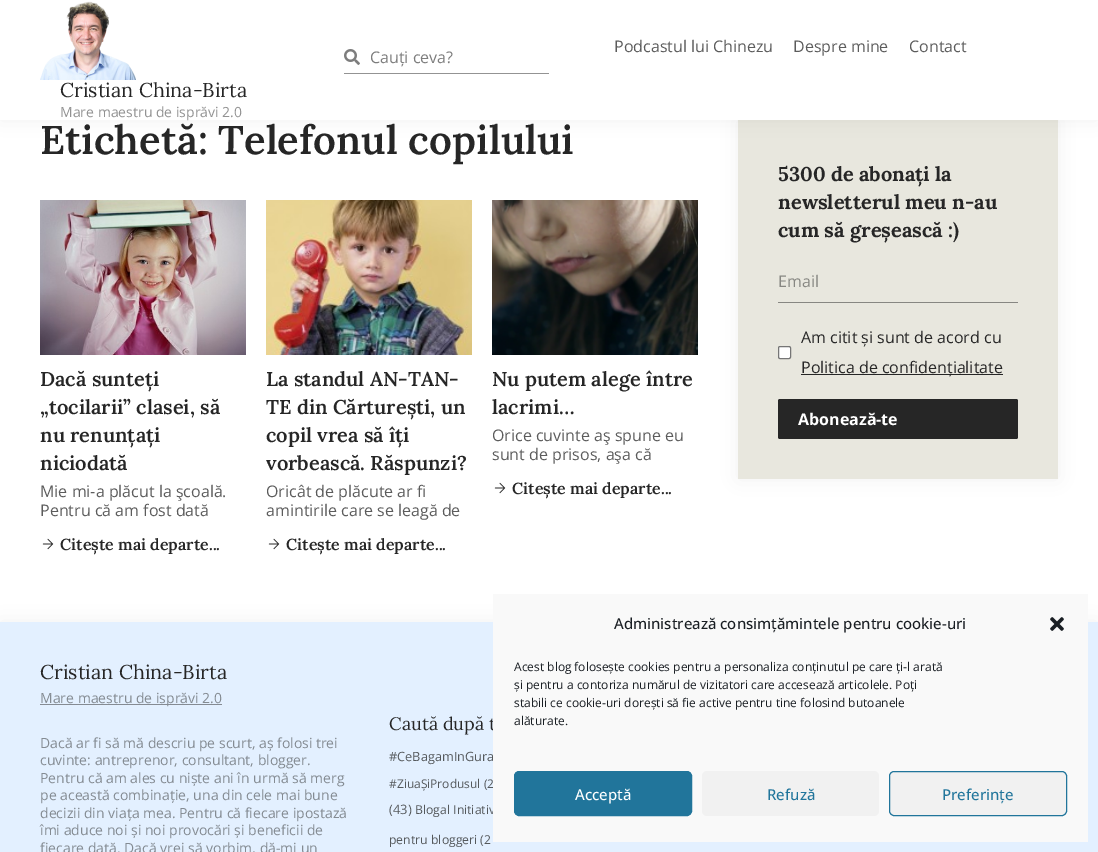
%!PS
<< /PageSize [1098 852] /PageUsesTransparency true >> setpagedevice
/rgb { 3 { 255 div 3 1 roll } repeat setrgbcolor } def
/font { [ exch dup neg 0 0 3 -1 roll 0 0 ] selectfont } def
/text { moveto show } def
/alpha { dup .setfillconstantalpha .setstrokeconstantalpha } def
/roundrect { 5 dict begin { /r /h /w /y /x } { exch def } forall
  x r add y moveto x w add y 2 copy h add r arct x w add y h add x 1 index r arct
  x y h add x y r arct x y 2 copy exch w add exch r arct closepath end } def
/shadow { 12 dict begin { /a /b /q /h /w /y /x } { exch def } forall gsave /was 0 def
  9 -2 -9 { dup b mul 4 div /e exch def 1 sub .425 mul 2.718 exch exp 1 add a .99 .min exch div /now exch def
    1 1 now sub 1 was sub div sub alpha /was now def
    w h .min e 2 mul add 0 gt { x e sub y e sub w e 2 mul add h e 2 mul add
      q e add b .6 mul add w h .min 2 div e add .min 0 .max roundrect fill } if } for grestore end } def
/picture { 5 dict begin { /h /w /y /x /name } { exch def } forall
  gsave x y translate w h scale
  w h 8 [w 0 0 h 0 0] name (r) file false 3 colorimage grestore end } def
0 .pushpdf14devicefilter
0 852 translate 1 -1 scale
4 setmiterlimit
255 255 255 rgb
0 0 1098 852 rectfill
0 0 0 rgb
738 120 320 359 0 10 0.05 shadow
232 231 222 rgb
738 120 320 359 rectfill
0 0 0 rgb
0 0 1098 120 0 10 0.05 shadow
255 255 255 rgb
0 0 1098 120 rectfill
147 147 147 rgb
344 73 205 1 rectfill
(img_01.rgb) 344 49 16 16 picture
(img_02.rgb) 40 1 96 79 picture
(img_03.rgb) 40 200 206 155 picture
(img_04.rgb) 42 538 12 12 picture
(img_05.rgb) 266 200 206 155 picture
(img_04.rgb) 268 538 12 12 picture
(img_06.rgb) 492 200 206 155 picture
(img_04.rgb) 494 482 12 12 picture
135 135 130 rgb
778 302 240 1 rectfill
255 255 255 rgb
778.5 346.5 12 12 1.5 roundrect gsave fill grestore
118 118 118 rgb
stroke
38 38 38 rgb
801 374 202 1 rectfill
778 399 240 40 2 roundrect fill
0 0 0 rgb
0 622 1098 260 0 10 0.05 shadow
227 240 255 rgb
0 622 1098 230 rectfill
133 139 147 rgb
40 704 182 1 rectfill
/OpenSans-Regular 16 font
92 92 92 rgb
(Podcastul lui Chinezu) 614 52 text
(Despre mine) 793 52 text
(Contact) 909 52 text
125 125 125 rgb
(Cauți ceva?) 370 63 text
/Lora-Regular 20 font
38 38 38 rgb
(Cristian China-Birta) 60 97 text
/OpenSans-Regular 14 font
146 146 146 rgb
(Mare maestru de isprăvi 2.0) 60 117 text
/Lora-SemiBold 40 font
38 38 38 rgb
(Etichetă: Telefonul copilului) 40 154 text
/Lora-SemiBold 20 font
(Dacă sunteți) 40 386 text
(„tocilarii” clasei, să) 40 414 text
(nu renunțați) 40 442 text
(niciodată) 40 470 text
/OpenSans-Regular 16 font
92 92 92 rgb
(Mie mi-a plăcut la şcoală.) 40 497 text
(Pentru că am fost dată) 40 516 text
/Lora-SemiBold 16 font
38 38 38 rgb
(Citește mai departe...) 60 550 text
/Lora-SemiBold 20 font
(La standul AN-TAN-) 266 386 text
(TE din Cărturești, un) 266 414 text
(copil vrea să îți) 266 442 text
(vorbească. Răspunzi?) 266 470 text
/OpenSans-Regular 16 font
92 92 92 rgb
(Oricât de plăcute ar fi) 266 497 text
(amintirile care se leagă de) 266 516 text
/Lora-SemiBold 16 font
38 38 38 rgb
(Citește mai departe...) 286 550 text
/Lora-SemiBold 20 font
(Nu putem alege între) 492 386 text
(lacrimi…) 492 414 text
/OpenSans-Regular 16 font
92 92 92 rgb
(Orice cuvinte aş spune eu) 492 441 text
(sunt de prisos, aşa că) 492 460 text
/Lora-SemiBold 16 font
38 38 38 rgb
(Citește mai departe...) 512 494 text
/Lora-Bold 20 font
(5300 de abonați la) 778 181 text
(newsletterul meu n-au) 778 209 text
(cum să greșească :\)) 778 237 text
/OpenSans-Regular 16 font
135 135 130 rgb
(Email) 778 287 text
38 38 38 rgb
(Am citit și sunt de acord cu) 801 343 text
(Politica de confidențialitate) 801 373 text
/OpenSans-Bold 16 font
255 255 255 rgb
(Abonează-te) 798 425 text
/Lora-Regular 20 font
38 38 38 rgb
(Cristian China-Birta) 40 679 text
/OpenSans-Regular 14 font
132 139 146 rgb
(Mare maestru de isprăvi 2.0) 40 703 text
(Dacă ar fi să mă descriu pe scurt, aș folosi trei) 40 748 text
(cuvinte: antreprenor, consultant, blogger.) 40 765 text
(Pentru că am ales cu niște ani în urmă să merg) 40 783 text
(pe această combinație, una din cele mai bune) 40 800 text
(decizii din viața mea. Pentru că fiecare ipostază) 40 818 text
(îmi aduce noi și noi provocări și beneficii de) 40 835 text
(fiecare dată. Dacă vrei să vorbim, dă-mi un) 40 853 text
/Lora-Regular 18 font
38 38 38 rgb
(Caută după t) 389 730 text
/OpenSans-Regular 12.75 font
85 89 92 rgb
(#CeBagamInGura) 389 761 text
/OpenSans-Regular 12 font
(#ZiuaȘiProdusul \(2) 389 788 text
/OpenSans-Regular 13 font
(\(43\)) 389 814 text
/OpenSans-Regular 12.25 font
(Blogal Initiativ) 415 814 text
(pentru bloggeri \(2) 389 844 text
249 249 249 rgb
493 594 595 248 rectfill
/OpenSans-Medium 15 font
25 30 35 rgb
(Administrează consimțămintele pentru cookie-uri) 614 629 text
(img_07.rgb) 1050 617 14 14 picture
/OpenSans-Regular 12 font
(Acest blog folosește cookies pentru a personaliza conținutul pe care ți-l arată) 514 671 text
(și pentru a contoriza numărul de vizitatori care accesează articolele. Poți) 514 689 text
(stabili ce cookie-uri dorești să fie active pentru tine folosind butoanele) 514 707 text
(alăturate.) 514 725 text
33 117 155 rgb
514.5 771.5 177 44 4.5 roundrect gsave fill grestore
stroke
/OpenSans-Medium 15 font
255 255 255 rgb
(Acceptă) 575 800 text
241 241 241 rgb
702 771 177 45 5 roundrect fill
33 117 155 rgb
(Refuză) 767 800 text
241 241 241 rgb
889.5 771.5 177 44 4.5 roundrect gsave fill grestore
33 117 155 rgb
stroke
(Preferințe) 942 800 text
.poppdf14devicefilter showpage
